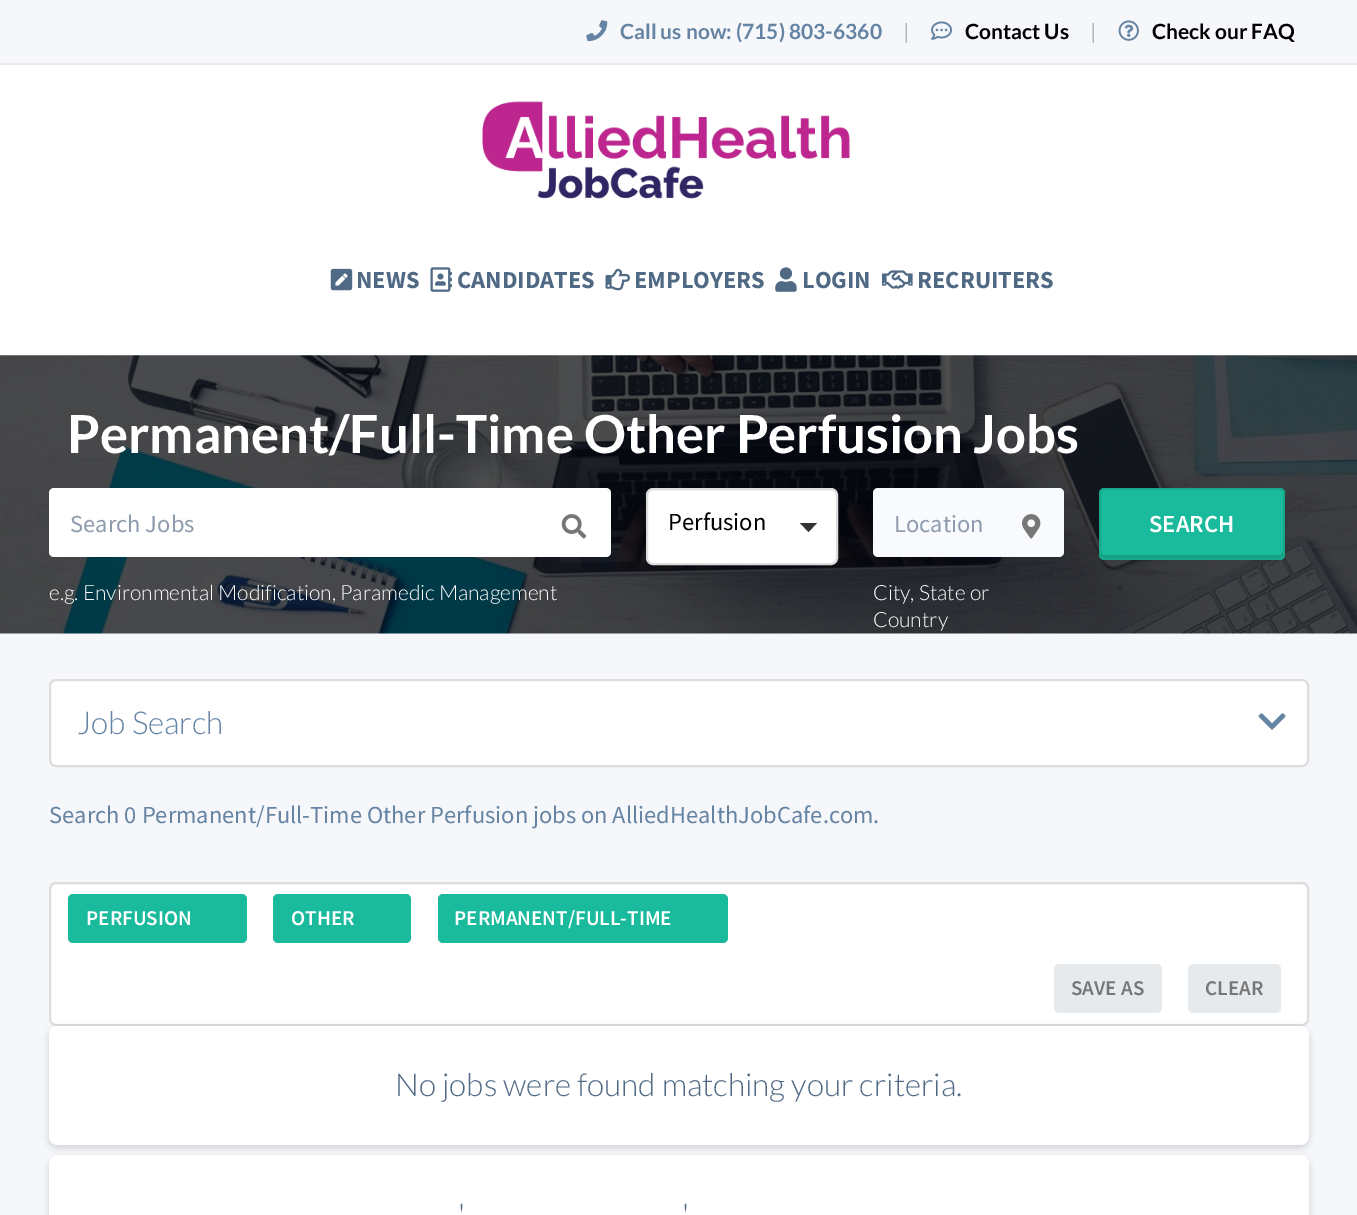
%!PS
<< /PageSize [1357 1215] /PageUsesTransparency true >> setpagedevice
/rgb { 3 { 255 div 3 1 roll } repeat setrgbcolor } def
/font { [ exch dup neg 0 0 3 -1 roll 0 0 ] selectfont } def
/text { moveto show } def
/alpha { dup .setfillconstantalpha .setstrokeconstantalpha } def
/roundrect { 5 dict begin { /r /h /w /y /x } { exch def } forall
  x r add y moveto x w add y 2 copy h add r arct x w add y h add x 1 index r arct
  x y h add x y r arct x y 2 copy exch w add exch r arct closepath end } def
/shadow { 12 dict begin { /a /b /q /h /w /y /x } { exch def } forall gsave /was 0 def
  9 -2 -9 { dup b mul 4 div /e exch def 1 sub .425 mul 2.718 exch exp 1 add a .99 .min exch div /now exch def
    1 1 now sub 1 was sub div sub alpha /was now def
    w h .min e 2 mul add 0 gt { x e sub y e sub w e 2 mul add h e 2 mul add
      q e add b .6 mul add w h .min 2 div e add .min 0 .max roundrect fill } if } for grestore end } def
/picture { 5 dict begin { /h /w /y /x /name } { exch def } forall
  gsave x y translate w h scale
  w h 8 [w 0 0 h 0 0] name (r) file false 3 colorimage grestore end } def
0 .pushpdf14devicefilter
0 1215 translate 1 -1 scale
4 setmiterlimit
255 255 255 rgb
0 0 1357 1215 rectfill
245 247 250 rgb
0 0 1357 63 rectfill
235 234 235 rgb
0 63 1357 2 rectfill
(img_01.rgb) 586 20 22 22 picture
(img_02.rgb) 931 21 21 19 picture
(img_03.rgb) 1118 20 21 21 picture
(img_04.rgb) 482 101 368 98 picture
(img_05.rgb) 330 268 23 23 picture
(img_06.rgb) 430 267 22 25 picture
(img_07.rgb) 605 268 25 23 picture
(img_08.rgb) 775 267 22 25 picture
(img_09.rgb) 882 270 31 19 picture
245 247 250 rgb
0 355 1357 860 rectfill
(img_10.rgb) 0 355 1357 279 picture
255 255 255 rgb
49 488 562 69 5 roundrect fill
(img_11.rgb) 561 514 26 25 picture
647 489 190 75 6 roundrect gsave fill grestore
221 221 221 rgb
2 setlinewidth
stroke
51 51 51 rgb
800 523 moveto 17 0 rlineto -8.5 9 rlineto closepath fill
248 250 253 rgb
873 488 191 69 5 roundrect fill
(img_12.rgb) 1022 514 19 25 picture
26 187 156 rgb
1099 488 186 72 5 roundrect fill
22 159 133 rgb
1101 551 moveto 0 3 rlineto 0 2 2 4 4 4 rcurveto 174 0 rlineto 2 0 4 -2 4 -4 rcurveto 0 -3 rlineto 0 2 -2 4 -4 4 rcurveto -175 0 rlineto -2 0 -3 -2 -3 -4 rcurveto closepath fill
0.1 alpha
0 0 0 rgb
1100 489 184 70 4 roundrect stroke
1 alpha
255 255 255 rgb
50 680 1258 86 6 roundrect gsave fill grestore
221 221 221 rgb
stroke
(img_13.rgb) 1258 713 28 17 picture
255 255 255 rgb
50 883 1258 142 6 roundrect gsave fill grestore
221 221 221 rgb
stroke
26 187 156 rgb
68 894 179 49 5 roundrect fill
273 894 138 49 5 roundrect fill
438 894 290 49 5 roundrect fill
230 234 237 rgb
1054 964 108 49 5 roundrect fill
1188 964 93 49 5 roundrect fill
0 0 0 rgb
49 1029 1260 119 9 3.5 0.15 shadow
255 255 255 rgb
49 1026 1260 119 9 roundrect fill
0 0 0 rgb
49 1159 1260 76 9 3.5 0.15 shadow
255 255 255 rgb
49 1155 1260 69 9 roundrect fill
/Lato-Bold 21 font
101 131 163 rgb
(Call us now: \(715\) 803-6360) 620 39 text
/Lato-Light 21 font
119 119 119 rgb
(|) 903 39 text
/Lato-Bold 21 font
0 0 0 rgb
(Contact Us) 965 39 text
/Lato-Light 21 font
119 119 119 rgb
(|) 1090 39 text
/Lato-Bold 21 font
0 0 0 rgb
(Check our FAQ) 1152 39 text
/SourceSansPro-Bold 24.5 font
80 106 133 rgb
(NEWS) 356 288 text
(CANDIDATES) 457 288 text
(EMPLOYERS) 634 288 text
(LOGIN) 802 288 text
(RECRUITERS) 917 288 text
/Lato-Bold 52.5 font
255 255 255 rgb
(Permanent/Full-Time Other Perfusion Jobs) 67 453 text
/SourceSansPro-Regular 24.5 font
142 155 173 rgb
(Search Jobs) 70 532 text
/Lato-Light 21 font
255 255 255 rgb
(e.g. Environmental Modification, Paramedic Management) 49 600 text
/SourceSansPro-Regular 24.5 font
0 0 0 rgb
(Perfusion) 668 530 text
142 155 173 rgb
(Location) 894 532 text
/Lato-Light 21 font
255 255 255 rgb
(City, State or) 873 600 text
(Country) 873 627 text
/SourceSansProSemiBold-SemiBold 24.5 font
(SEARCH) 1149 532 text
/Lato-Light 31.5 font
101 131 163 rgb
(Job Search) 77 734 text
/SourceSansPro-Regular 24.5 font
(Search 0 Permanent/Full-Time Other Perfusion jobs on AlliedHealthJobCafe.com.) 49 823 text
/SourceSansProSemiBold-SemiBold 21 font
255 255 255 rgb
(PERFUSION) 86 925 text
(OTHER) 291 925 text
(PERMANENT/FULL-TIME) 454 925 text
119 119 119 rgb
(SAVE AS) 1071 995 text
(CLEAR) 1205 995 text
/Lato-Light 31.5 font
80 106 133 rgb
(No jobs were found matching your criteria.) 395 1096 text
(') 458 1226 text
(') 682 1226 text
.poppdf14devicefilter showpage
